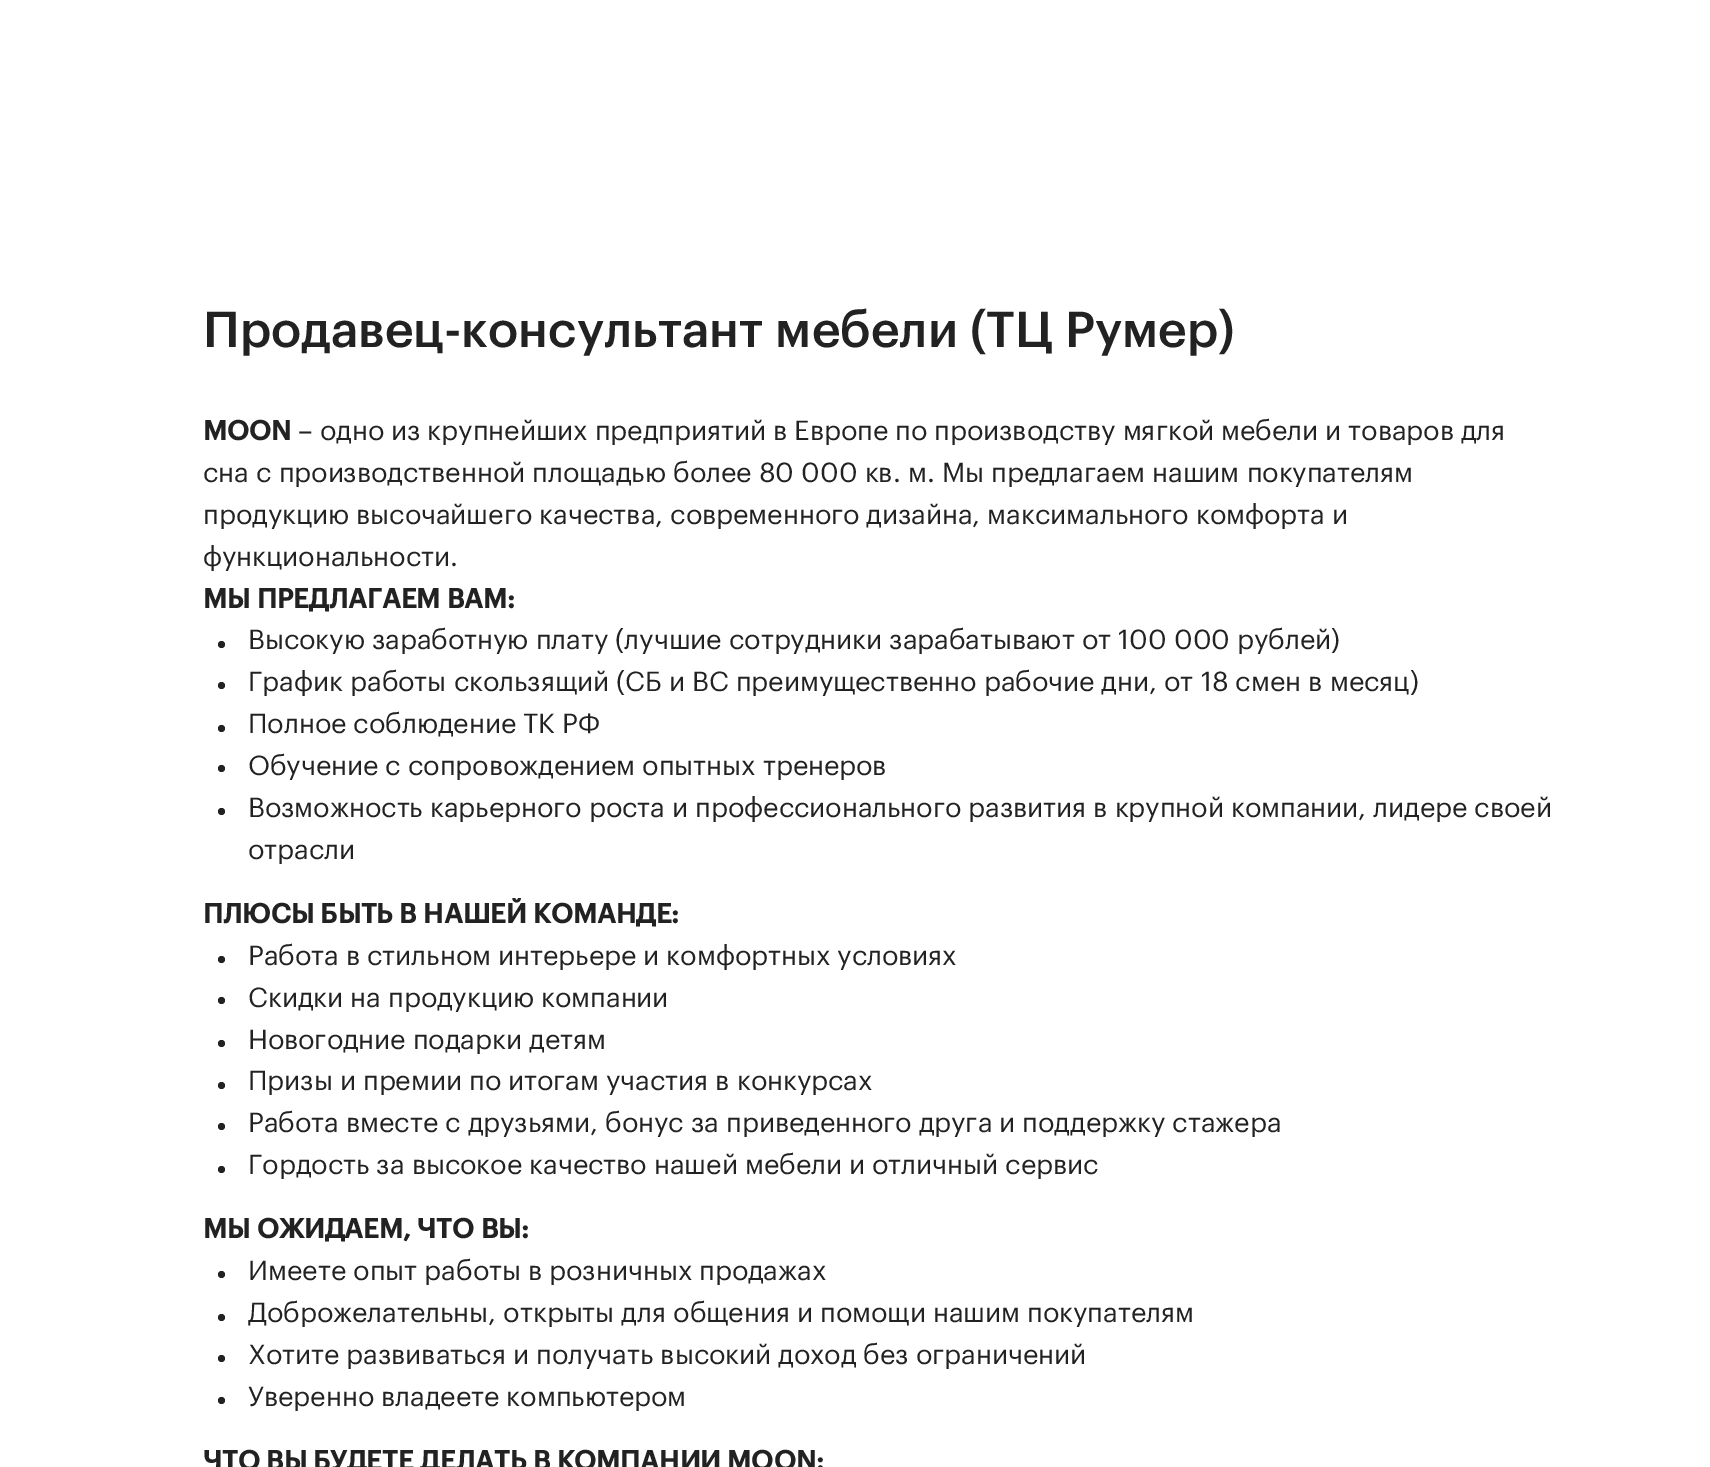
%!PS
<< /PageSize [1710 1467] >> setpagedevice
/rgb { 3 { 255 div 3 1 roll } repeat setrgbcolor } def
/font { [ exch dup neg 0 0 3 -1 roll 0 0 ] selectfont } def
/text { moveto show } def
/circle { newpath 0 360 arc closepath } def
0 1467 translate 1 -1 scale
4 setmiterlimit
255 255 255 rgb
0 0 1710 1467 rectfill
34 34 34 rgb
221.5 644.5 3.5 circle fill
221.5 685.5 3.5 circle fill
221.5 728.5 3.5 circle fill
221.5 768.5 3.5 circle fill
221.5 811.5 3.5 circle fill
221.5 959.5 3.5 circle fill
221.5 1000.5 3.5 circle fill
221.5 1043.5 3.5 circle fill
221.5 1085.5 3.5 circle fill
221.5 1126.5 3.5 circle fill
221.5 1169.5 3.5 circle fill
221.5 1274.5 3.5 circle fill
221.5 1317.5 3.5 circle fill
221.5 1358.5 3.5 circle fill
221.5 1400.5 3.5 circle fill
/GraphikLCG-Medium 49.5 font
(Продавец-консультант мебели \(ТЦ Румер\)) 203 347 text
/GraphikLCG-Bold 27 font
(MOON) 203 440 text
/GraphikLCG-Regular 27 font
(– одно из крупнейших предприятий в Европе по производству мягкой мебели и товаров для) 298 440 text
(сна с производственной площадью более 80 000 кв. м. Мы предлагаем нашим покупателям) 203 482 text
(продукцию высочайшего качества, современного дизайна, максимального комфорта и) 203 524 text
(функциональности.) 203 566 text
/GraphikLCG-Bold 27 font
(МЫ ПРЕДЛАГАЕМ ВАМ:) 203 608 text
/GraphikLCG-Regular 27 font
(Высокую заработную плату \(лучшие сотрудники зарабатывают от 100 000 рублей\)) 248 649 text
(График работы скользящий \(СБ и ВС преимущественно рабочие дни, от 18 смен в месяц\)) 248 691 text
(Полное соблюдение ТК РФ) 248 733 text
(Обучение с сопровождением опытных тренеров) 248 775 text
(Возможность карьерного роста и профессионального развития в крупной компании, лидере своей) 248 817 text
(отрасли) 248 859 text
/GraphikLCG-Bold 27 font
(ПЛЮСЫ БЫТЬ В НАШЕЙ КОМАНДЕ:) 203 923 text
/GraphikLCG-Regular 27 font
(Работа в стильном интерьере и комфортных условиях) 248 965 text
(Скидки на продукцию компании) 248 1007 text
(Новогодние подарки детям) 248 1049 text
(Призы и премии по итогам участия в конкурсах) 248 1090 text
(Работа вместе с друзьями, бонус за приведенного друга и поддержку стажера) 248 1132 text
(Гордость за высокое качество нашей мебели и отличный сервис) 248 1174 text
/GraphikLCG-Bold 27 font
(МЫ ОЖИДАЕМ, ЧТО ВЫ:) 203 1238 text
/GraphikLCG-Regular 27 font
(Имеетe опыт работы в розничных продажах) 248 1280 text
(Доброжелательны, открыты для общения и помощи нашим покупателям) 248 1322 text
(Хотите развиваться и получать высокий доход без ограничений) 248 1364 text
(Уверенно владеете компьютером) 248 1406 text
/GraphikLCG-Bold 27 font
(ЧТО ВЫ БУДЕТЕ ДЕЛАТЬ В КОМПАНИИ MOON:) 203 1470 text
showpage
